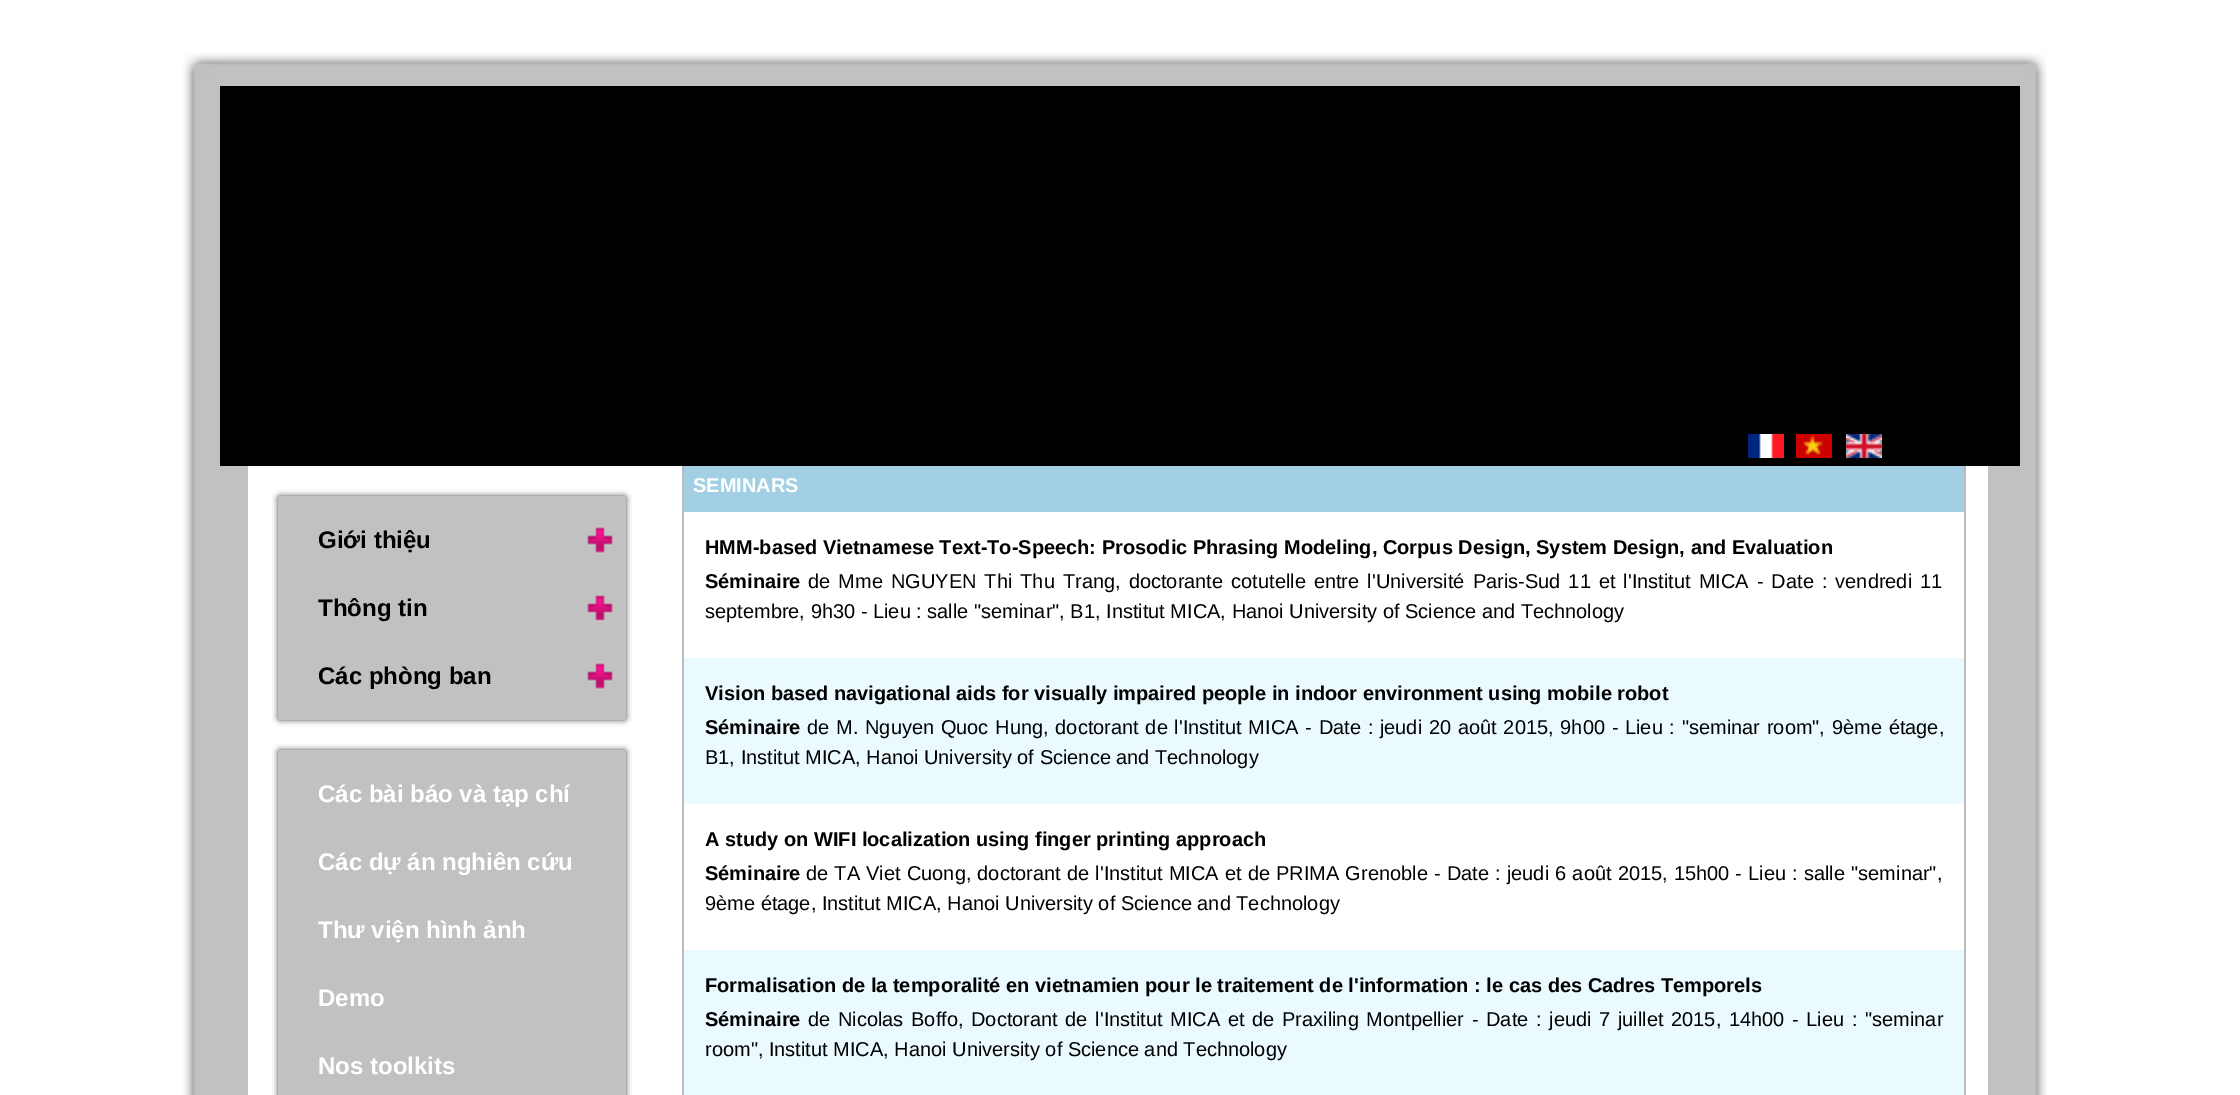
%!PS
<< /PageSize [2240 1095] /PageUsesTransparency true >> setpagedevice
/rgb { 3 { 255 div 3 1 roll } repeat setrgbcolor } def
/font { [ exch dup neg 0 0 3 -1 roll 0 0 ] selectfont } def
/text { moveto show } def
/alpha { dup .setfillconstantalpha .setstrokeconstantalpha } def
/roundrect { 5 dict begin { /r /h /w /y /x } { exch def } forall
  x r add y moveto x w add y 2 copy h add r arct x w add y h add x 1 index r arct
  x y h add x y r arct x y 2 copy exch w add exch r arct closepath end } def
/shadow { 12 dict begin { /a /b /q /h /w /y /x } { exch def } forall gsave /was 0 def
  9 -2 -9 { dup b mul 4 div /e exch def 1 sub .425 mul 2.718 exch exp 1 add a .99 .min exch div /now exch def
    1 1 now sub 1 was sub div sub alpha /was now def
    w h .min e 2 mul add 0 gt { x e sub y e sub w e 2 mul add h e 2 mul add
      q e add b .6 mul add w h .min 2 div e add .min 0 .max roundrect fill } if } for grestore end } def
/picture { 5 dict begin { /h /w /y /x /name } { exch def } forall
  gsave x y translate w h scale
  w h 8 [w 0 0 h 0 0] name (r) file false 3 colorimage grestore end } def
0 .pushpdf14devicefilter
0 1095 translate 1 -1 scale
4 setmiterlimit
255 255 255 rgb
0 0 2240 1095 rectfill
(img_01.rgb) 183 53 1864 27 picture
(img_02.rgb) 183 80 1864 386 picture
0 0 0 rgb
220 86 1800 380 rectfill
(img_03.rgb) 1748 434 36 24 picture
(img_04.rgb) 1796 434 36 24 picture
(img_05.rgb) 1846 434 36 24 picture
(img_06.rgb) 183 466 1864 629 picture
255 255 255 rgb
248 466 1740 629 rectfill
68 68 68 rgb
278 496 348 224 2 3 1 shadow
193 193 193 rgb
278 496 348 224 2 roundrect fill
(img_07.rgb) 587 527 26 27 picture
(img_07.rgb) 587 595 26 27 picture
(img_07.rgb) 587 663 26 27 picture
68 68 68 rgb
278 750 348 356 2 3 1 shadow
193 193 193 rgb
278 750 348 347 2 roundrect fill
234 250 255 rgb
684 658 1280 437 rectfill
188 187 188 rgb
1964 466 2 629 rectfill
682 466 2 629 rectfill
162 207 228 rgb
684 466 1280 46 rectfill
255 255 255 rgb
684 804 1280 146 rectfill
/LiberationSans-Bold 24 font
0 0 0 rgb
(Giới thiệu) 318 548 text
(Thông tin) 318 616 text
(Các phòng ban) 318 684 text
255 255 255 rgb
(Các bài báo và tạp chí) 318 802 text
(Các dự án nghiên cứu) 318 870 text
(Thư viện hình ảnh) 318 938 text
(Demo) 318 1006 text
(Nos toolkits) 318 1074 text
/LiberationSans-Bold 20 font
(SEMINARS) 693 492 text
0 0 0 rgb
(HMM-based Vietnamese Text-To-Speech: Prosodic Phrasing Modeling, Corpus Design, System Design, and Evaluation) 705 554 text
(Séminaire) 705 588 text
/LiberationSans-Regular 20 font
808 588 moveto 2.5 0 32 (de Mme NGUYEN Thi Thu Trang, doctorante cotutelle entre l'Université Paris-Sud 11 et l'Institut MICA - Date : vendredi 11) widthshow
(septembre, 9h30 - Lieu : salle "seminar", B1, Institut MICA, Hanoi University of Science and Technology) 705 618 text
/LiberationSans-Bold 20 font
(Vision based navigational aids for visually impaired people in indoor environment using mobile robot) 705 700 text
(Séminaire) 705 734 text
/LiberationSans-Regular 20 font
807 734 moveto 1.2 0 32 (de M. Nguyen Quoc Hung, doctorant de l'Institut MICA - Date : jeudi 20 août 2015, 9h00 - Lieu : "seminar room", 9ème étage,) widthshow
(B1, Institut MICA, Hanoi University of Science and Technology) 705 764 text
/LiberationSans-Bold 20 font
(A study on WIFI localization using finger printing approach) 705 846 text
(Séminaire) 705 880 text
/LiberationSans-Regular 20 font
806 880 moveto 0.6 0 32 (de TA Viet Cuong, doctorant de l'Institut MICA et de PRIMA Grenoble - Date : jeudi 6 août 2015, 15h00 - Lieu : salle "seminar",) widthshow
(9ème étage, Institut MICA, Hanoi University of Science and Technology) 705 910 text
/LiberationSans-Bold 20 font
(Formalisation de la temporalité en vietnamien pour le traitement de l'information : le cas des Cadres Temporels) 705 992 text
(Séminaire) 705 1026 text
/LiberationSans-Regular 20 font
808 1026 moveto 2.1 0 32 (de Nicolas Boffo, Doctorant de l'Institut MICA et de Praxiling Montpellier - Date : jeudi 7 juillet 2015, 14h00 - Lieu : "seminar) widthshow
(room", Institut MICA, Hanoi University of Science and Technology) 705 1056 text
.poppdf14devicefilter showpage
